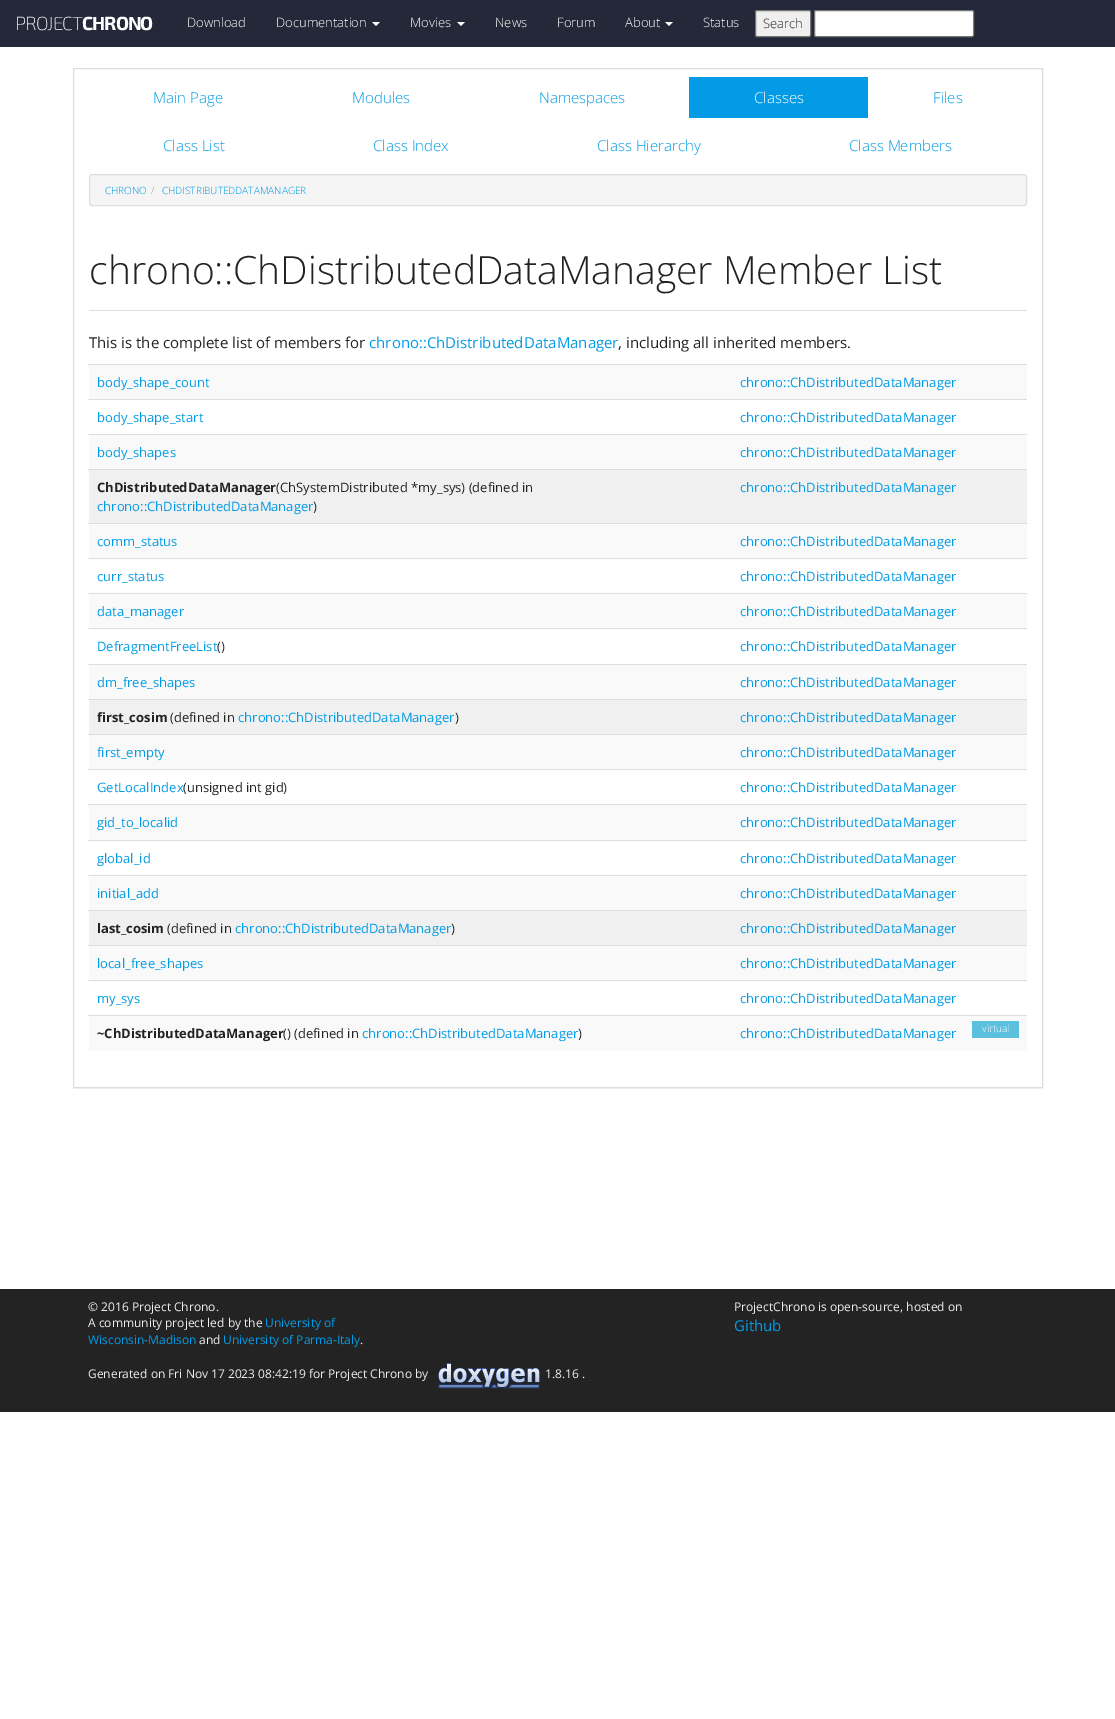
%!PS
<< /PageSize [1115 1719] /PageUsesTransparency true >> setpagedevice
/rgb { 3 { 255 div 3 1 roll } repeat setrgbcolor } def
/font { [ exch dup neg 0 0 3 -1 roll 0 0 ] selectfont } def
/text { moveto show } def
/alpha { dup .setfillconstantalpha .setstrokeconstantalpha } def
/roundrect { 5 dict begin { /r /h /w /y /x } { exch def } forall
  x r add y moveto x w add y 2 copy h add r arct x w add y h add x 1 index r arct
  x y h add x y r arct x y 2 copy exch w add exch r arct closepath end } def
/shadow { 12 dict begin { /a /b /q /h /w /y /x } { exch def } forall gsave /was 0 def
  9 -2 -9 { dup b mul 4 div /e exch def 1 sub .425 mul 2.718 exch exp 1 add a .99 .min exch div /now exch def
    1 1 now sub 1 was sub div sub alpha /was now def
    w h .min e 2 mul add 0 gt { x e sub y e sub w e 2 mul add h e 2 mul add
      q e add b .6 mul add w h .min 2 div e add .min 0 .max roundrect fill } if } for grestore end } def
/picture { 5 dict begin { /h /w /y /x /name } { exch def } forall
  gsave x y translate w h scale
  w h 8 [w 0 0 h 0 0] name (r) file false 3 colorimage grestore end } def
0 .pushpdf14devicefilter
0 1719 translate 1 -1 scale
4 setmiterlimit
255 255 255 rgb
0 0 1115 1719 rectfill
37 40 57 rgb
0 0 1115 47 rectfill
255 255 255 rgb
372 22 moveto 8 0 rlineto -4 4 rlineto closepath fill
457 22 moveto 8 0 rlineto -4 4 rlineto closepath fill
665 22 moveto 8 0 rlineto -4 4 rlineto closepath fill
239 239 239 rgb
755.5 10.5 55 26 1.5 roundrect gsave fill grestore
118 118 118 rgb
stroke
255 255 255 rgb
814.5 10.5 159 26 1.5 roundrect gsave fill grestore
118 118 118 rgb
stroke
gsave
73 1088 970 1 rectclip
0 0 0 rgb
73 69 970 1020 0 0.5 0.05 shadow
grestore
221 221 221 rgb
73.5 68.5 969 1019 rectstroke
3 155 229 rgb
689 77 179 41 rectfill
245 245 245 rgb
89.5 174.5 937 31 2.5 roundrect gsave fill grestore
221 221 221 rgb
stroke
89 310 938 1 rectfill
249 249 249 rgb
89 365 938 34 rectfill
221 221 221 rgb
88 364 939 1 rectfill
88 399 939 1 rectfill
249 249 249 rgb
89 435 938 34 rectfill
221 221 221 rgb
88 434 939 1 rectfill
240 240 240 rgb
89 470 938 53 rectfill
221 221 221 rgb
88 469 939 1 rectfill
249 249 249 rgb
89 524 938 34 rectfill
221 221 221 rgb
88 523 939 1 rectfill
88 558 939 1 rectfill
249 249 249 rgb
89 594 938 34 rectfill
221 221 221 rgb
88 593 939 1 rectfill
88 628 939 1 rectfill
249 249 249 rgb
89 665 938 34 rectfill
221 221 221 rgb
88 664 939 1 rectfill
240 240 240 rgb
89 700 938 34 rectfill
221 221 221 rgb
88 699 939 1 rectfill
249 249 249 rgb
89 735 938 34 rectfill
221 221 221 rgb
88 734 939 1 rectfill
88 769 939 1 rectfill
249 249 249 rgb
89 805 938 35 rectfill
221 221 221 rgb
88 804 939 1 rectfill
88 840 939 1 rectfill
249 249 249 rgb
89 876 938 34 rectfill
221 221 221 rgb
88 875 939 1 rectfill
240 240 240 rgb
89 911 938 34 rectfill
221 221 221 rgb
88 910 939 1 rectfill
249 249 249 rgb
89 946 938 34 rectfill
221 221 221 rgb
88 945 939 1 rectfill
88 980 939 1 rectfill
249 249 249 rgb
89 1016 938 35 rectfill
221 221 221 rgb
88 1015 939 1 rectfill
91 192 222 rgb
972 1021 47 17 rectfill
35 35 35 rgb
0 1289 1115 123 rectfill
(img_01.rgb) 437 1362 104 27 picture
/Exo2-ExtraLight 19 font
255 255 255 rgb
15 30 moveto -1 0 (PROJECT) ashow
/Exo2-Bold 19 font
82 30 moveto -1 0 (CHRONO) ashow
/OpenSans-Light 13 font
(Download) 187 27 text
(Documentation) 276 27 text
(Movies) 410 27 text
(News) 495 27 text
(Forum) 557 27 text
(About) 625 27 text
(Status) 703 27 text
34 34 34 rgb
(Search) 763 28 text
/OpenSans-Light 15 font
3 155 229 rgb
(Main Page) 153 103 text
(Modules) 352 103 text
(Namespaces) 539 103 text
255 255 255 rgb
(Classes) 754 103 text
3 155 229 rgb
(Files) 933 103 text
(Class List) 163 151 text
(Class Index) 373 151 text
(Class Hierarchy) 597 151 text
(Class Members) 849 151 text
/OpenSans-Light 10 font
(CHRONO) 105 194 text
153 153 153 rgb
(/) 151 194 text
3 155 229 rgb
(CHDISTRIBUTEDDATAMANAGER) 162 194 text
/OpenSans-Light 39 font
34 34 34 rgb
(chrono::ChDistributedDataManager Member List) 89 284 text
/OpenSans-Regular 15 font
(This is the complete list of members for) 89 348 text
3 155 229 rgb
(chrono::ChDistributedDataManager) 369 348 text
34 34 34 rgb
(, including all inherited members.) 618 348 text
/OpenSans-Regular 13 font
3 155 229 rgb
(body_shape_count) 97 387 text
(chrono::ChDistributedDataManager) 740 387 text
(body_shape_start) 97 422 text
(chrono::ChDistributedDataManager) 740 422 text
(body_shapes) 97 457 text
(chrono::ChDistributedDataManager) 740 457 text
/OpenSans-Bold 13 font
34 34 34 rgb
(ChDistributedDataManager) 97 492 text
/OpenSans-Regular 13 font
(\(ChSystemDistributed *my_sys\) \(defined in) 276 492 text
3 155 229 rgb
(chrono::ChDistributedDataManager) 97 511 text
34 34 34 rgb
(\)) 313 511 text
3 155 229 rgb
(chrono::ChDistributedDataManager) 740 492 text
(comm_status) 97 546 text
(chrono::ChDistributedDataManager) 740 546 text
(curr_status) 97 581 text
(chrono::ChDistributedDataManager) 740 581 text
(data_manager) 97 616 text
(chrono::ChDistributedDataManager) 740 616 text
(DefragmentFreeList) 97 651 text
34 34 34 rgb
(\(\)) 217 651 text
3 155 229 rgb
(chrono::ChDistributedDataManager) 740 651 text
(dm_free_shapes) 97 687 text
(chrono::ChDistributedDataManager) 740 687 text
/OpenSans-Bold 13 font
34 34 34 rgb
(first_cosim) 97 722 text
/OpenSans-Regular 13 font
(\(defined in) 170 722 text
3 155 229 rgb
(chrono::ChDistributedDataManager) 238 722 text
34 34 34 rgb
(\)) 455 722 text
3 155 229 rgb
(chrono::ChDistributedDataManager) 740 722 text
(first_empty) 97 757 text
(chrono::ChDistributedDataManager) 740 757 text
(GetLocalIndex) 97 792 text
34 34 34 rgb
(\(unsigned int gid\)) 183 792 text
3 155 229 rgb
(chrono::ChDistributedDataManager) 740 792 text
(gid_to_localid) 97 827 text
(chrono::ChDistributedDataManager) 740 827 text
(global_id) 97 863 text
(chrono::ChDistributedDataManager) 740 863 text
(initial_add) 97 898 text
(chrono::ChDistributedDataManager) 740 898 text
/OpenSans-Bold 13 font
34 34 34 rgb
(last_cosim) 97 933 text
/OpenSans-Regular 13 font
(\(defined in) 167 933 text
3 155 229 rgb
(chrono::ChDistributedDataManager) 235 933 text
34 34 34 rgb
(\)) 451 933 text
3 155 229 rgb
(chrono::ChDistributedDataManager) 740 933 text
(local_free_shapes) 97 968 text
(chrono::ChDistributedDataManager) 740 968 text
(my_sys) 97 1003 text
(chrono::ChDistributedDataManager) 740 1003 text
/OpenSans-Bold 13 font
34 34 34 rgb
(~ChDistributedDataManager) 97 1038 text
/OpenSans-Regular 13 font
(\(\) \(defined in) 283 1038 text
3 155 229 rgb
(chrono::ChDistributedDataManager) 362 1038 text
34 34 34 rgb
(\)) 578 1038 text
3 155 229 rgb
(chrono::ChDistributedDataManager) 740 1038 text
/OpenSans-Light 10 font
255 255 255 rgb
(virtual) 982 1032 text
/OpenSans-Regular 12 font
238 238 238 rgb
(© 2016 Project Chrono.) 88 1311 text
(A community project led by the) 88 1327 text
3 155 229 rgb
(University of) 265 1327 text
(Wisconsin-Madison) 88 1344 text
238 238 238 rgb
(and) 199 1344 text
3 155 229 rgb
(University of Parma-Italy) 223 1344 text
238 238 238 rgb
(.) 360 1344 text
(ProjectChrono is open-source, hosted on) 734 1311 text
/OpenSans-Regular 15 font
3 155 229 rgb
(Github) 734 1331 text
/OpenSans-Regular 12 font
238 238 238 rgb
(Generated on Fri Nov 17 2023 08:42:19 for Project Chrono by) 88 1378 text
(1.8.16 .) 545 1378 text
.poppdf14devicefilter showpage
